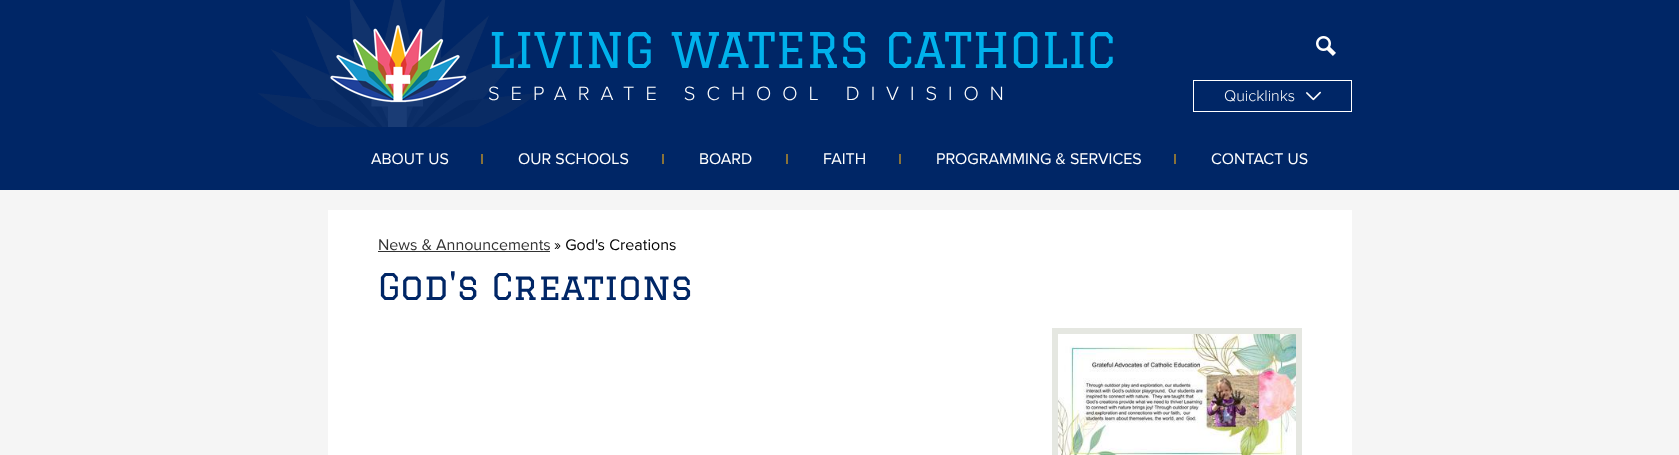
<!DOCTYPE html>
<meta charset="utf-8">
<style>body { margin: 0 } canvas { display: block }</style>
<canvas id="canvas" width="1679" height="455"></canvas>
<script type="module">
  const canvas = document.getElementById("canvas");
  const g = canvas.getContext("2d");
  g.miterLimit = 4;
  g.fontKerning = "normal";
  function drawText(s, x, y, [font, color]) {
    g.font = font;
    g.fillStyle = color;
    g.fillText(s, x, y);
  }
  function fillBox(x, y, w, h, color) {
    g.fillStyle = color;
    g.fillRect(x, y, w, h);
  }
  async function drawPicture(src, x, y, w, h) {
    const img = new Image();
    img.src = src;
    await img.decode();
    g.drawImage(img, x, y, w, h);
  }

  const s1 = ["48px Graduate", "#00B2EC"];
  const s2 = ["300 20px Proxima Nova", "#FFFFFF"];
  const s3 = ["300 16px Proxima Nova", "#FFFFFF"];
  const s4 = ["16px Proxima Nova", "#FFFFFF"];
  const s5 = ["16px Proxima Nova", "#333333"];
  const s6 = ["16px Proxima Nova", "#000000"];
  const s7 = ["36px Graduate", "#002666"];

  fillBox(0, 0, 1679, 455, "#F5F5F5");
  fillBox(0, 0, 1679, 190, "#002666");
  await drawPicture("pic1.png", 258, 0, 279, 127);
  await drawPicture("pic2.png", 330, 25, 137, 78);
  drawText("LIVING WATERS CATHOLIC", 488, 68, s1);
  g.letterSpacing = "11px";
  drawText("SEPARATE SCHOOL DIVISION", 488, 100, s2);
  await drawPicture("pic3.png", 1316, 36, 20, 20);
  g.strokeStyle = "#FFFFFF";
  g.strokeRect(1193.5, 80.5, 158, 31);
  g.letterSpacing = "0px";
  drawText("Quicklinks", 1224, 101, s3);
  await drawPicture("pic4.png", 1306, 91, 15, 10);
  drawText("ABOUT US", 371, 164, s4);
  fillBox(481, 154, 2, 10, "#897239");
  drawText("OUR SCHOOLS", 518, 164, s4);
  fillBox(662, 154, 2, 10, "#897239");
  drawText("BOARD", 699, 164, s4);
  fillBox(786, 154, 2, 10, "#897239");
  drawText("FAITH", 823, 164, s4);
  fillBox(899, 154, 2, 10, "#897239");
  drawText("PROGRAMMING & SERVICES", 936, 164, s4);
  fillBox(1174, 154, 2, 10, "#897239");
  drawText("CONTACT US", 1211, 164, s4);
  fillBox(328, 210, 1024, 245, "#FFFFFF");
  drawText("News & Announcements", 378, 250, s5);
  fillBox(378, 251, 172, 1, "#333333");
  drawText("» God's Creations", 554, 250, s6);
  drawText("God's Creations", 378, 300, s7);
  g.strokeStyle = "#E5E7E1";
  g.lineWidth = 6;
  g.strokeRect(1055, 331, 244, 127);
  await drawPicture("pic5.png", 1058, 334, 238, 121);
</script>
